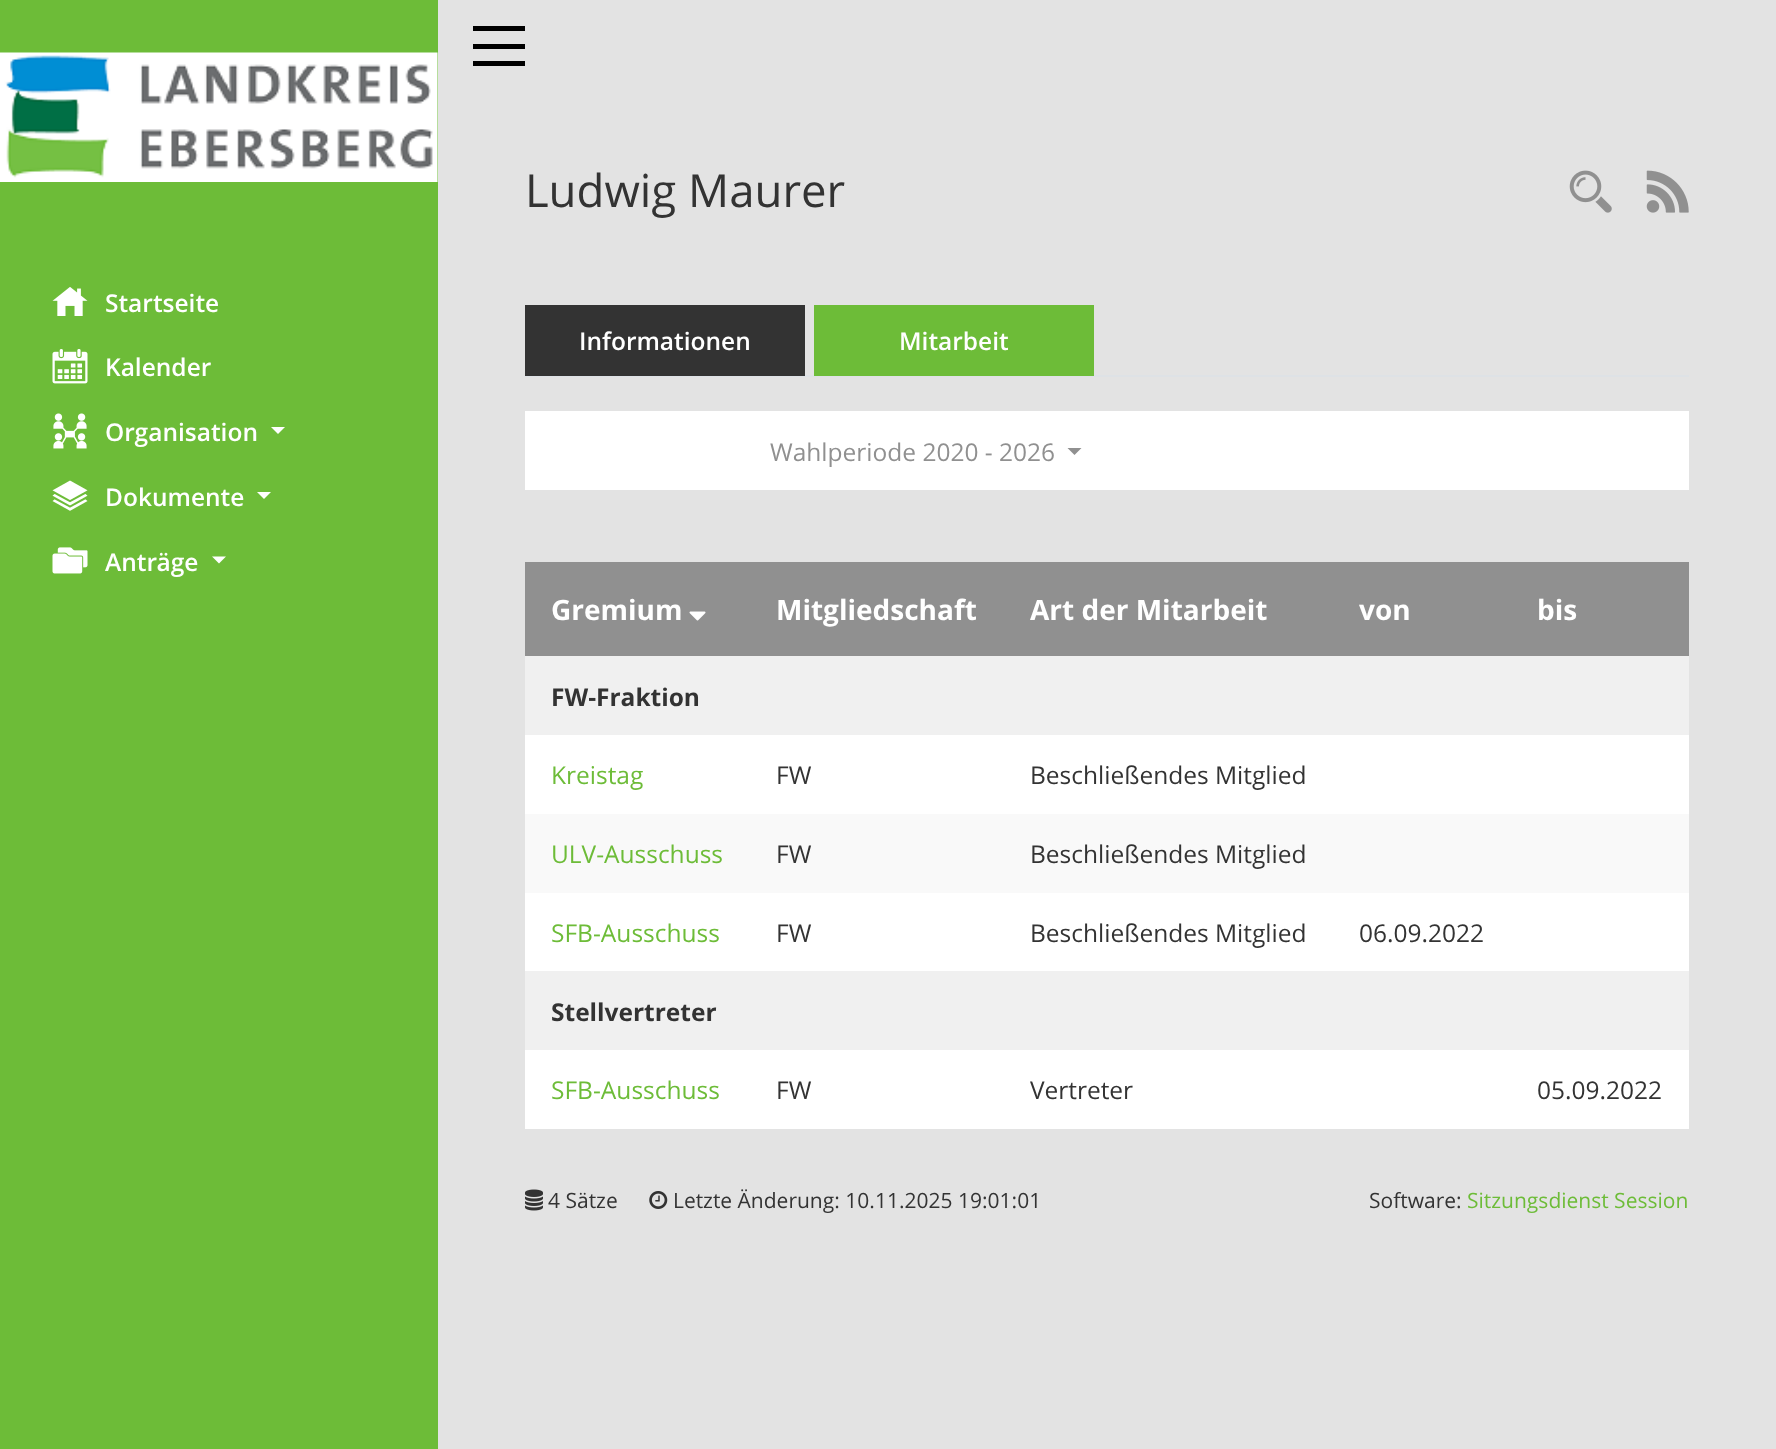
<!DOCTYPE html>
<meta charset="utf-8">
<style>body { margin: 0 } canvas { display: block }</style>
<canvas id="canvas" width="1776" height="1449"></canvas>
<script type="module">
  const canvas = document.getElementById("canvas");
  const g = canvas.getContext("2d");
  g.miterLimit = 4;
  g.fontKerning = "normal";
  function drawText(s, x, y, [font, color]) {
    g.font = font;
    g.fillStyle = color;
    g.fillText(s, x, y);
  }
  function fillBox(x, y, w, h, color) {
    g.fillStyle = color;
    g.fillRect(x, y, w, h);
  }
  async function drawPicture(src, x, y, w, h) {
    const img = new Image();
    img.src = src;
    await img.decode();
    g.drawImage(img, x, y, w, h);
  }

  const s1 = ["600 24.5px Open Sans", "#FFFFFF"];
  const s2 = ["45.5px Open Sans", "#333333"];
  const s3 = ["24.5px Open Sans", "#909090"];
  const s4 = ["bold 28px Open Sans", "#FFFFFF"];
  const s5 = ["bold 24.5px Open Sans", "#333333"];
  const s6 = ["24.5px Open Sans", "#6DBC38"];
  const s7 = ["24.5px Open Sans", "#333333"];
  const s8 = ["21px Open Sans", "#333333"];
  const s9 = ["21px Open Sans", "#6DBC38"];

  fillBox(0, 0, 1776, 1449, "#E3E3E3");
  fillBox(0, 0, 438, 1449, "#6DBC38");
  await drawPicture("pic1.png", 0, 52, 438, 130);
  await drawPicture("pic2.png", 52, 287, 36, 29);
  drawText("Startseite", 105, 312, s1);
  await drawPicture("pic3.png", 52, 349, 36, 35);
  drawText("Kalender", 105, 376, s1);
  await drawPicture("pic4.png", 53, 413, 34, 36);
  drawText("Organisation", 105, 441, s1);
  g.beginPath();
  g.moveTo(271, 427);
  g.lineTo(285, 427);
  g.lineTo(278, 434);
  g.closePath();
  g.fill();
  await drawPicture("pic5.png", 52, 480, 36, 31);
  drawText("Dokumente", 105, 506, s1);
  g.beginPath();
  g.moveTo(257, 492);
  g.lineTo(271, 492);
  g.lineTo(264, 499);
  g.closePath();
  g.fill();
  await drawPicture("pic6.png", 52, 547, 36, 27);
  drawText("Anträge", 105, 571, s1);
  g.beginPath();
  g.moveTo(212, 556.5);
  g.lineTo(226, 556.5);
  g.lineTo(219, 563.5);
  g.closePath();
  g.fill();
  fillBox(473, 26, 52, 5, "#000000");
  fillBox(473, 44, 52, 5, "#000000");
  fillBox(473, 61, 52, 5, "#000000");
  drawText("Ludwig Maurer", 525, 207, s2);
  await drawPicture("pic7.png", 1569, 170, 43, 43);
  await drawPicture("pic8.png", 1646, 170, 43, 43);
  fillBox(525, 375, 1164, 2, "#DEE2E6");
  fillBox(525, 305, 280, 71, "#333333");
  drawText("Informationen", 579, 350, s1);
  fillBox(814, 305, 280, 71, "#6DBC38");
  drawText("Mitarbeit", 899, 350, s1);
  fillBox(525, 411, 1164, 79, "#FFFFFF");
  drawText("Wahlperiode 2020 - 2026", 770, 461, s3);
  g.beginPath();
  g.moveTo(1067.5, 448);
  g.lineTo(1081.5, 448);
  g.lineTo(1074.5, 455);
  g.closePath();
  g.fill();
  fillBox(525, 735, 1164, 394, "#FFFFFF");
  fillBox(525, 562, 1164, 94, "#909090");
  drawText("Gremium", 551, 620, s4);
  await drawPicture("pic9.png", 689, 611, 17, 10);
  drawText("Mitgliedschaft", 776, 620, s4);
  drawText("Art der Mitarbeit", 1030, 620, s4);
  drawText("von", 1359, 620, s4);
  drawText("bis", 1537, 620, s4);
  fillBox(525, 656, 1164, 79, "#F0F0F0");
  drawText("FW-Fraktion", 551, 706, s5);
  drawText("Kreistag", 551, 784, s6);
  drawText("FW", 776, 784, s7);
  drawText("Beschließendes Mitglied", 1030, 784, s7);
  fillBox(525, 814, 1164, 79, "#F9F9F9");
  drawText("ULV-Ausschuss", 551, 863, s6);
  drawText("FW", 776, 863, s7);
  drawText("Beschließendes Mitglied", 1030, 863, s7);
  drawText("SFB-Ausschuss", 551, 942, s6);
  drawText("FW", 776, 942, s7);
  drawText("Beschließendes Mitglied", 1030, 942, s7);
  drawText("06.09.2022", 1359, 942, s7);
  fillBox(525, 971, 1164, 79, "#F0F0F0");
  drawText("Stellvertreter", 551, 1021, s5);
  drawText("SFB-Ausschuss", 551, 1099, s6);
  drawText("FW", 776, 1099, s7);
  drawText("Vertreter", 1030, 1099, s7);
  drawText("05.09.2022", 1537, 1099, s7);
  await drawPicture("pic10.png", 525, 1189, 18, 22);
  drawText("4 Sätze", 548, 1208, s8);
  await drawPicture("pic11.png", 649, 1191, 19, 18);
  drawText("Letzte Änderung: 10.11.2025 19:01:01", 673, 1208, s8);
  drawText("Software:", 1369, 1208, s8);
  drawText("Sitzungsdienst Session", 1467, 1208, s9);
</script>
